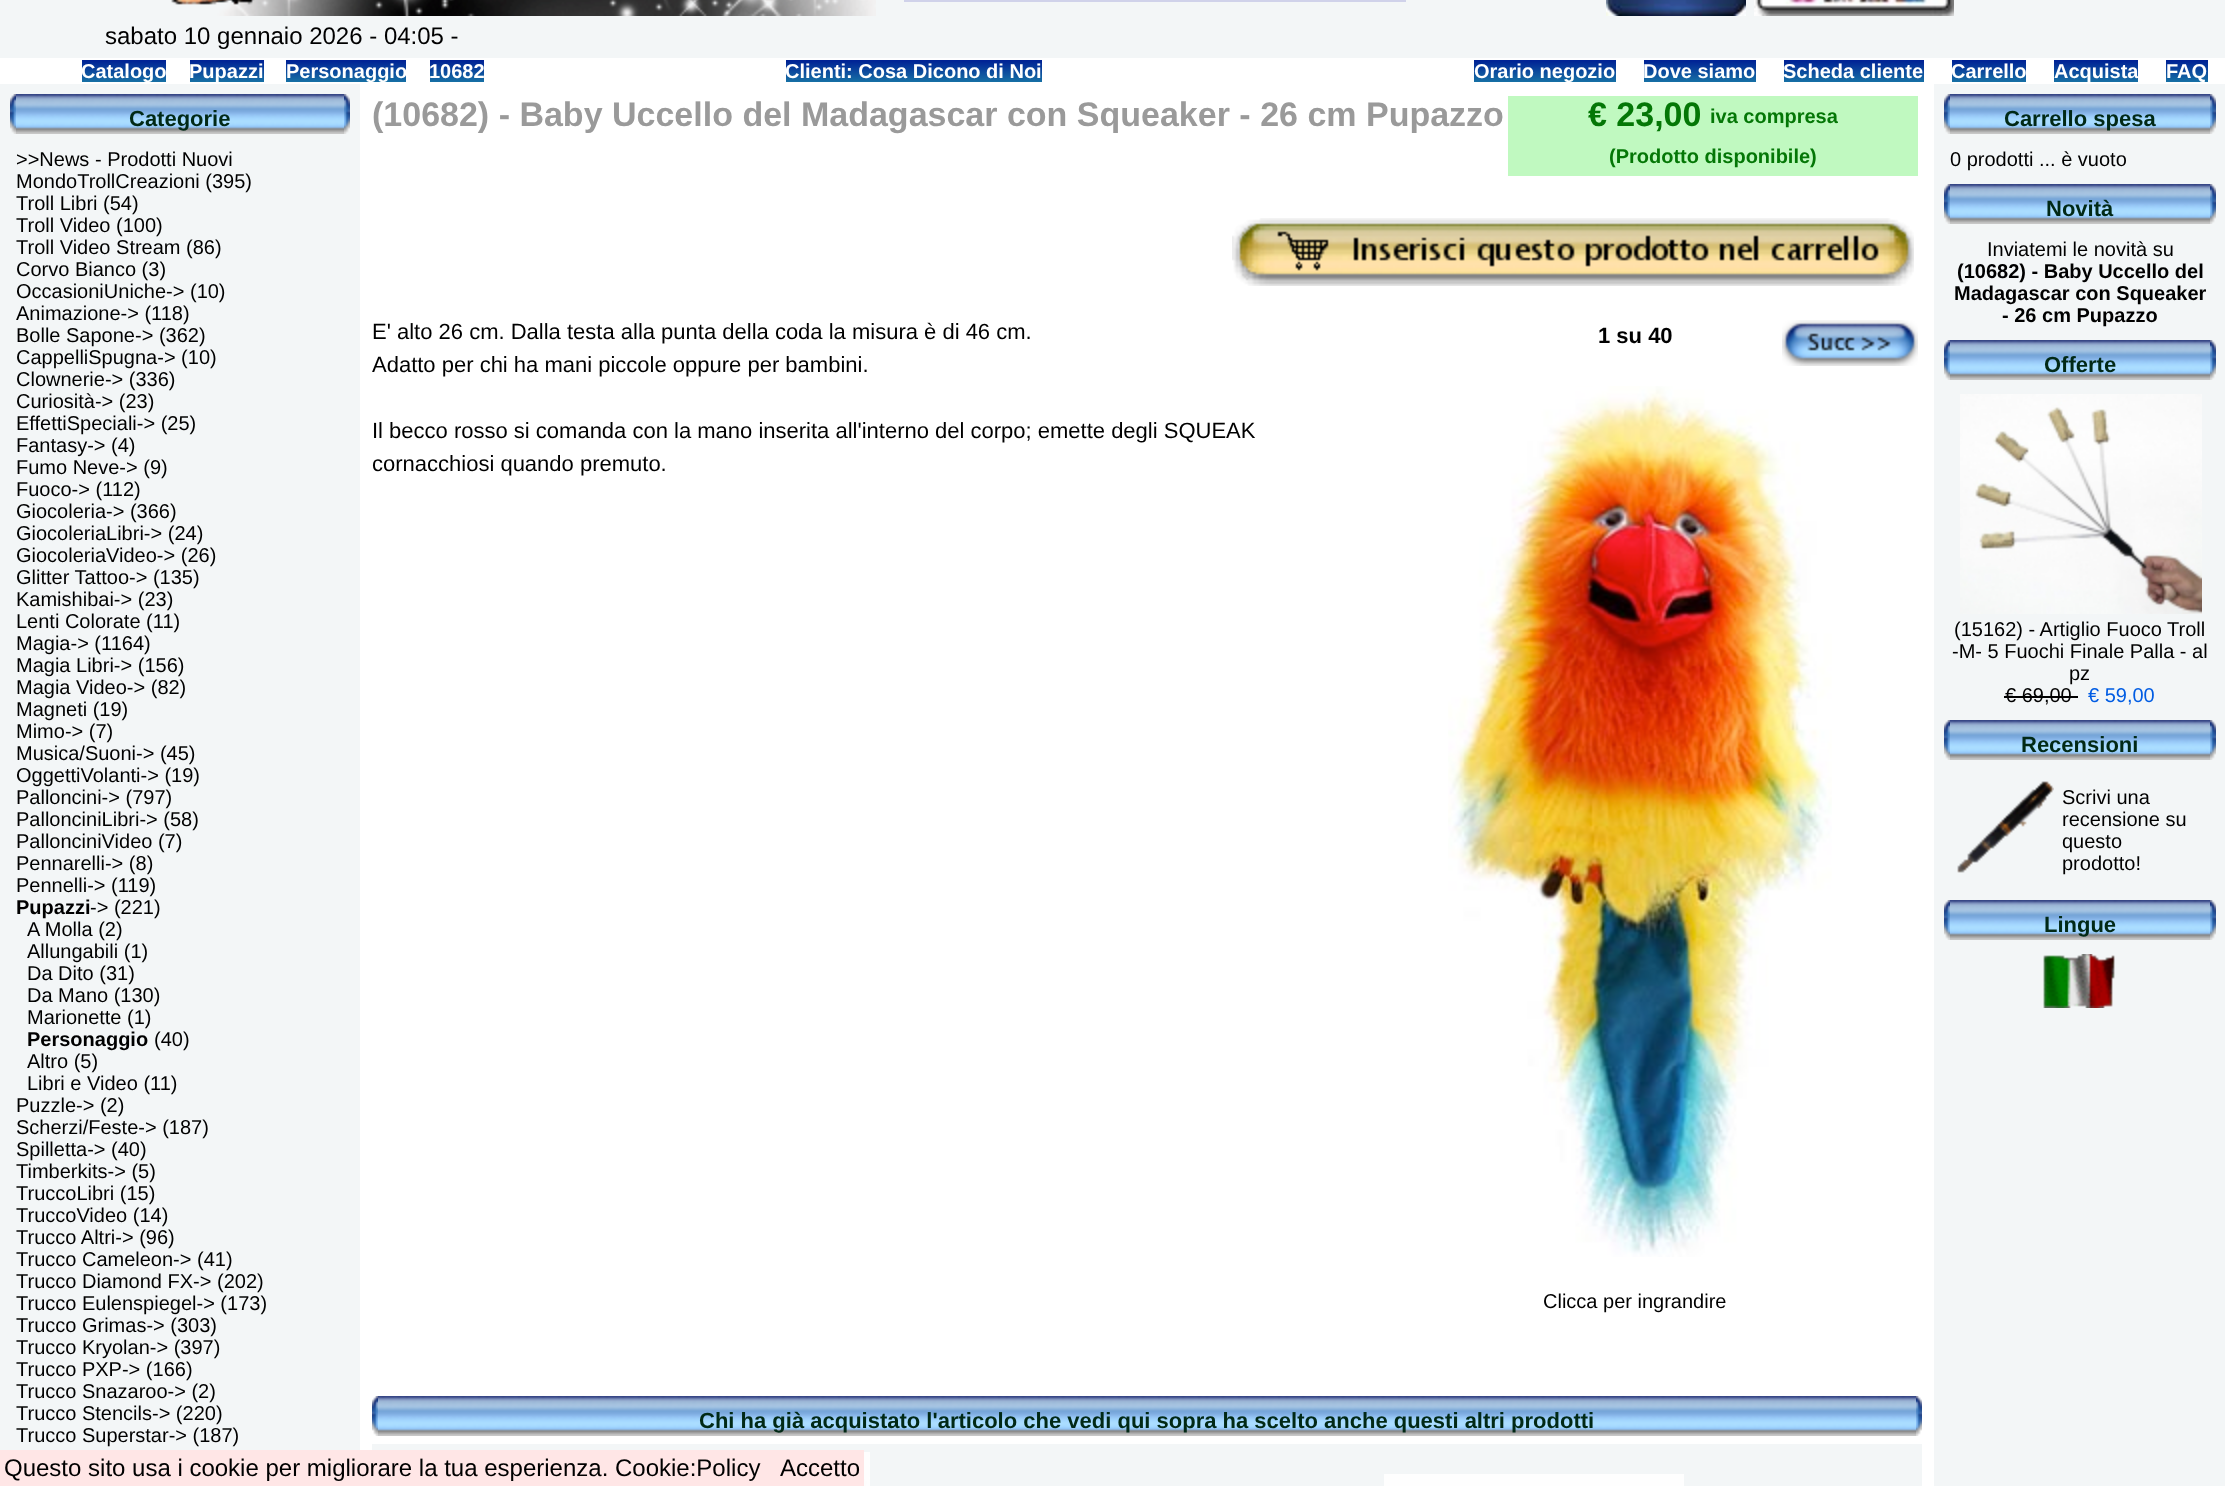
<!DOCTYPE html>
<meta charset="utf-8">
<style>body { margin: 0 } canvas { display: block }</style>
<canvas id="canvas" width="2225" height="1486"></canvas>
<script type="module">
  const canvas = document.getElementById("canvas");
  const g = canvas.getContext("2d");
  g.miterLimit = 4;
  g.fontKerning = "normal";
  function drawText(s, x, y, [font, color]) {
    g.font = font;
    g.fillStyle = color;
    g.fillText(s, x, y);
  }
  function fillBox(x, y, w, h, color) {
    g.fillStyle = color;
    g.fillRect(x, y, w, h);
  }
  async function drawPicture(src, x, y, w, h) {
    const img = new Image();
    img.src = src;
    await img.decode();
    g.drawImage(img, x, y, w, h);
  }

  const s1 = ["24px Liberation Sans", "#000000"];
  const s2 = ["bold 20px Liberation Sans", "#FFFFFF"];
  const s3 = ["bold 22px Liberation Sans", "#012916"];
  const s4 = ["20px Liberation Sans", "#000000"];
  const s5 = ["bold 20px Liberation Sans", "#000000"];
  const s6 = ["bold 34px Liberation Sans", "#9A9A9A"];
  const s7 = ["bold 34px Liberation Sans", "#047706"];
  const s8 = ["bold 20px Liberation Sans", "#047706"];
  const s9 = ["22px Liberation Sans", "#000000"];
  const s10 = ["bold 22px Liberation Sans", "#000000"];
  const s11 = ["20px Liberation Sans", "#005CE3"];

  fillBox(0, 0, 2225, 1486, "#FFFFFF");
  fillBox(0, 0, 2225, 58, "#F3F6F7");
  fillBox(904, 0, 502, 2, "#D0D2EA");
  await drawPicture("pic1.png", 1606, 0, 140, 16);
  await drawPicture("pic2.png", 1754, 0, 200, 16);
  await drawPicture("pic3.png", 171, 0, 705, 16);
  drawText("sabato 10 gennaio 2026 - 04:05 -", 105, 44, s1);
  await drawPicture("pic4.png", 82, 60, 84, 22);
  await drawPicture("pic5.png", 190, 60, 74, 22);
  await drawPicture("pic6.png", 286, 60, 120, 22);
  await drawPicture("pic7.png", 430, 60, 54, 22);
  drawText("Catalogo", 81, 78, s2);
  drawText("Pupazzi", 189, 78, s2);
  drawText("Personaggio", 286, 78, s2);
  drawText("10682", 429, 78, s2);
  await drawPicture("pic8.png", 786, 60, 256, 22);
  drawText("Clienti: Cosa Dicono di Noi", 785, 78, s2);
  await drawPicture("pic9.png", 1474, 60, 142, 22);
  await drawPicture("pic10.png", 1644, 60, 112, 22);
  await drawPicture("pic11.png", 1784, 60, 140, 22);
  await drawPicture("pic5.png", 1952, 60, 74, 22);
  await drawPicture("pic4.png", 2054, 60, 84, 22);
  await drawPicture("pic12.png", 2166, 60, 42, 22);
  drawText("Orario negozio", 1474, 78, s2);
  drawText("Dove siamo", 1643, 78, s2);
  drawText("Scheda cliente", 1783, 78, s2);
  drawText("Carrello", 1951, 78, s2);
  drawText("Acquista", 2054, 78, s2);
  drawText("FAQ", 2166, 78, s2);
  fillBox(0, 84, 360, 1366, "#F3F6F7");
  await drawPicture("pic13.png", 10, 94, 6, 40);
  await drawPicture("pic14.png", 16, 94, 328, 40);
  drawText("Categorie", 129, 126, s3);
  await drawPicture("pic15.png", 344, 94, 6, 40);
  drawText(">>News - Prodotti Nuovi", 16, 166, s4);
  drawText("MondoTrollCreazioni (395)", 16, 188, s4);
  drawText("Troll Libri (54)", 16, 210, s4);
  drawText("Troll Video (100)", 16, 232, s4);
  drawText("Troll Video Stream (86)", 16, 254, s4);
  drawText("Corvo Bianco (3)", 16, 276, s4);
  drawText("OccasioniUniche-> (10)", 16, 298, s4);
  drawText("Animazione-> (118)", 16, 320, s4);
  drawText("Bolle Sapone-> (362)", 16, 342, s4);
  drawText("CappelliSpugna-> (10)", 16, 364, s4);
  drawText("Clownerie-> (336)", 16, 386, s4);
  drawText("Curiosità-> (23)", 16, 408, s4);
  drawText("EffettiSpeciali-> (25)", 16, 430, s4);
  drawText("Fantasy-> (4)", 16, 452, s4);
  drawText("Fumo Neve-> (9)", 16, 474, s4);
  drawText("Fuoco-> (112)", 16, 496, s4);
  drawText("Giocoleria-> (366)", 16, 518, s4);
  drawText("GiocoleriaLibri-> (24)", 16, 540, s4);
  drawText("GiocoleriaVideo-> (26)", 16, 562, s4);
  drawText("Glitter Tattoo-> (135)", 16, 584, s4);
  drawText("Kamishibai-> (23)", 16, 606, s4);
  drawText("Lenti Colorate (11)", 16, 628, s4);
  drawText("Magia-> (1164)", 16, 650, s4);
  drawText("Magia Libri-> (156)", 16, 672, s4);
  drawText("Magia Video-> (82)", 16, 694, s4);
  drawText("Magneti (19)", 16, 716, s4);
  drawText("Mimo-> (7)", 16, 738, s4);
  drawText("Musica/Suoni-> (45)", 16, 760, s4);
  drawText("OggettiVolanti-> (19)", 16, 782, s4);
  drawText("Palloncini-> (797)", 16, 804, s4);
  drawText("PallonciniLibri-> (58)", 16, 826, s4);
  drawText("PallonciniVideo (7)", 16, 848, s4);
  drawText("Pennarelli-> (8)", 16, 870, s4);
  drawText("Pennelli-> (119)", 16, 892, s4);
  drawText("Pupazzi", 16, 914, s5);
  drawText("-> (221)", 90, 914, s4);
  drawText("A Molla (2)", 27, 936, s4);
  drawText("Allungabili (1)", 27, 958, s4);
  drawText("Da Dito (31)", 27, 980, s4);
  drawText("Da Mano (130)", 27, 1002, s4);
  drawText("Marionette (1)", 27, 1024, s4);
  drawText("Personaggio", 27, 1046, s5);
  drawText("(40)", 154, 1046, s4);
  drawText("Altro (5)", 27, 1068, s4);
  drawText("Libri e Video (11)", 27, 1090, s4);
  drawText("Puzzle-> (2)", 16, 1112, s4);
  drawText("Scherzi/Feste-> (187)", 16, 1134, s4);
  drawText("Spilletta-> (40)", 16, 1156, s4);
  drawText("Timberkits-> (5)", 16, 1178, s4);
  drawText("TruccoLibri (15)", 16, 1200, s4);
  drawText("TruccoVideo (14)", 16, 1222, s4);
  drawText("Trucco Altri-> (96)", 16, 1244, s4);
  drawText("Trucco Cameleon-> (41)", 16, 1266, s4);
  drawText("Trucco Diamond FX-> (202)", 16, 1288, s4);
  drawText("Trucco Eulenspiegel-> (173)", 16, 1310, s4);
  drawText("Trucco Grimas-> (303)", 16, 1332, s4);
  drawText("Trucco Kryolan-> (397)", 16, 1354, s4);
  drawText("Trucco PXP-> (166)", 16, 1376, s4);
  drawText("Trucco Snazaroo-> (2)", 16, 1398, s4);
  drawText("Trucco Stencils-> (220)", 16, 1420, s4);
  drawText("Trucco Superstar-> (187)", 16, 1442, s4);
  drawText("(10682) - Baby Uccello del Madagascar con Squeaker - 26 cm Pupazzo", 372, 126, s6);
  fillBox(1508, 96, 410, 80, "#C0F9C0");
  drawText("€ 23,00", 1588, 126, s7);
  drawText("iva compresa", 1710, 123, s8);
  drawText("(Prodotto disponibile)", 1609, 163, s8);
  await drawPicture("pic16.png", 1232, 218, 682, 68);
  drawText("E' alto 26 cm. Dalla testa alla punta della coda la misura è di 46 cm.", 372, 339, s9);
  drawText("1 su 40", 1598, 343, s10);
  await drawPicture("pic17.png", 1782, 320, 136, 46);
  await drawPicture("pic18.png", 1448, 386, 384, 871);
  drawText("Clicca per ingrandire", 1543, 1308, s4);
  drawText("Adatto per chi ha mani piccole oppure per bambini.", 372, 372, s9);
  drawText("Il becco rosso si comanda con la mano inserita all'interno del corpo; emette degli SQUEAK", 372, 438, s9);
  drawText("cornacchiosi quando premuto.", 372, 471, s9);
  await drawPicture("pic19.png", 372, 1396, 6, 40);
  await drawPicture("pic20.png", 378, 1396, 1538, 40);
  drawText("Chi ha già acquistato l'articolo che vedi qui sopra ha scelto anche questi altri prodotti", 699, 1428, s3);
  await drawPicture("pic21.png", 1916, 1396, 6, 40);
  fillBox(372, 1444, 1550, 42, "#F3F6F7");
  await drawPicture("pic22.png", 864, 1452, 6, 34);
  fillBox(1384, 1474, 300, 12, "#FEFEFE");
  fillBox(1934, 84, 291, 1402, "#F3F6F7");
  await drawPicture("pic13.png", 1944, 94, 6, 40);
  await drawPicture("pic23.png", 1950, 94, 260, 40);
  drawText("Carrello spesa", 2004, 126, s3);
  await drawPicture("pic15.png", 2210, 94, 6, 40);
  drawText("0 prodotti ... è vuoto", 1950, 166, s4);
  await drawPicture("pic13.png", 1944, 184, 6, 40);
  await drawPicture("pic23.png", 1950, 184, 260, 40);
  drawText("Novità", 2046, 216, s3);
  await drawPicture("pic15.png", 2210, 184, 6, 40);
  drawText("Inviatemi le novità su", 1987, 256, s4);
  drawText("(10682) - Baby Uccello del", 1957, 278, s5);
  drawText("Madagascar con Squeaker", 1954, 300, s5);
  drawText("- 26 cm Pupazzo", 2002, 322, s5);
  await drawPicture("pic13.png", 1944, 340, 6, 40);
  await drawPicture("pic23.png", 1950, 340, 260, 40);
  drawText("Offerte", 2044, 372, s3);
  await drawPicture("pic15.png", 2210, 340, 6, 40);
  await drawPicture("pic24.png", 1960, 394, 242, 220);
  drawText("(15162) - Artiglio Fuoco Troll", 1954, 636, s4);
  drawText("-M- 5 Fuochi Finale Palla - al", 1952, 658, s4);
  drawText("pz", 2069, 680, s4);
  drawText("€ 69,00", 2005, 702, s4);
  fillBox(2004, 696, 74, 2, "#000000");
  drawText("€ 59,00", 2088, 702, s11);
  await drawPicture("pic13.png", 1944, 720, 6, 40);
  await drawPicture("pic23.png", 1950, 720, 260, 40);
  drawText("Recensioni", 2021, 752, s3);
  await drawPicture("pic15.png", 2210, 720, 6, 40);
  await drawPicture("pic25.png", 1957, 781, 97, 92);
  drawText("Scrivi una", 2062, 804, s4);
  drawText("recensione su", 2062, 826, s4);
  drawText("questo", 2062, 848, s4);
  drawText("prodotto!", 2062, 870, s4);
  await drawPicture("pic13.png", 1944, 900, 6, 40);
  await drawPicture("pic23.png", 1950, 900, 260, 40);
  drawText("Lingue", 2044, 932, s3);
  await drawPicture("pic15.png", 2210, 900, 6, 40);
  await drawPicture("pic26.png", 2043, 954, 72, 54);
  fillBox(0, 1450, 864, 36, "#FFE6E6");
  drawText("Questo sito usa i cookie per migliorare la tua esperienza. Cookie:Policy", 4, 1476, s1);
  drawText("Accetto", 780, 1476, s1);
</script>
